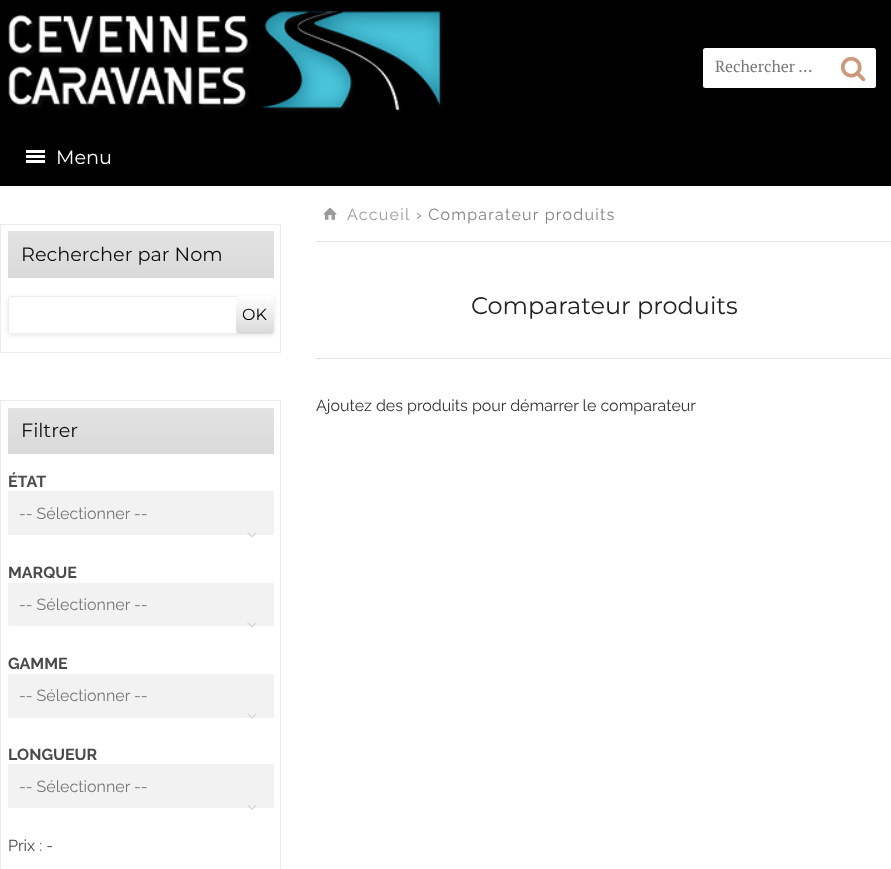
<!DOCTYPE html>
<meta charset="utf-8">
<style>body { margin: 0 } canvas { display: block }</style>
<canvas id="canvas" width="891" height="869"></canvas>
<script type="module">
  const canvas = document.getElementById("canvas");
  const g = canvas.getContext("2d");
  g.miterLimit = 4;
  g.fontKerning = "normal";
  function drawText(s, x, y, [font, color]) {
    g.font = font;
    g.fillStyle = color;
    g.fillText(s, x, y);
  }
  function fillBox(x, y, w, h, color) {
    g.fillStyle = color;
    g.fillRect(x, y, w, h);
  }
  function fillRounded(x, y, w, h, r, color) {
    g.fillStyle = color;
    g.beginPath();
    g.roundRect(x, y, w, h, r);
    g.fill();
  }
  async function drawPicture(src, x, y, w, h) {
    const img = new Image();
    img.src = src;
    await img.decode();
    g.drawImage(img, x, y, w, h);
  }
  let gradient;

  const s1 = ["16px PT Serif", "#777777"];
  const s2 = ["100 19.25px Montserrat", "#FFFFFF"];
  const s3 = ["100 19.25px Montserrat", "#0D0D0D"];
  const s4 = ["100 16px Montserrat", "#000000"];
  const s5 = ["bold 16px Raleway", "#4A4A4A"];
  const s6 = ["16px Raleway", "#777777"];
  const s7 = ["16px Raleway", "#4A4A4A"];
  const s8 = ["16px Raleway", "#9B9B9B"];
  const s9 = ["16px Raleway", "#818181"];
  const s10 = ["100 24px Montserrat", "#222222"];
  const s11 = ["16px Raleway", "#333333"];

  fillBox(0, 0, 891, 869, "#FFFFFF");
  fillBox(0, 0, 891, 186, "#000000");
  await drawPicture("pic1.png", 8, 11, 435, 102);
  fillRounded(703, 48, 173, 40, 2.5, "#FFFFFF");
  drawText("Rechercher ...", 715, 72, s1);
  await drawPicture("pic2.png", 840, 56, 26, 26);
  fillBox(26, 155, 19, 3, "#FFFFFF");
  fillBox(26, 150, 19, 3, "#FFFFFF");
  fillBox(26, 160, 19, 3, "#FFFFFF");
  drawText("Menu", 56, 164, s2);
  g.strokeStyle = "#EBEBEB";
  g.strokeRect(0.5, 224.5, 280, 128);
  gradient = g.createLinearGradient(141, 231, 141, 278);
  gradient.addColorStop(0, "#E3E3E3");
  gradient.addColorStop(1, "#D9D9D9");
  g.fillStyle = gradient;
  g.fillRect(8, 231, 266, 47);
  drawText("Rechercher par Nom", 21, 261, s3);
  g.fillStyle = "rgba(0, 0, 0, 0.1)";
  g.filter = "blur(2.5px)";
  g.beginPath();
  g.roundRect(8, 298, 266, 37, 2.5);
  g.fill();
  g.filter = "none";
  g.fillStyle = "#FFFFFF";
  g.beginPath();
  g.roundRect(8.5, 296.5, 265, 37, 2);
  g.fill();
  g.strokeStyle = "#EEEEEE";
  g.stroke();
  gradient = g.createLinearGradient(255, 296, 255, 334);
  gradient.addColorStop(0, "#FFFFFF");
  gradient.addColorStop(1, "#D9D9D9");
  g.fillStyle = gradient;
  g.beginPath();
  g.roundRect(236, 296, 38, 38, 4);
  g.fill();
  drawText("OK", 242, 320, s4);
  g.strokeStyle = "#EBEBEB";
  g.strokeRect(0.5, 400.5, 280, 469);
  gradient = g.createLinearGradient(141, 408, 141, 454);
  gradient.addColorStop(0, "#E3E3E3");
  gradient.addColorStop(1, "#D9D9D9");
  g.fillStyle = gradient;
  g.fillRect(8, 408, 266, 46);
  drawText("Filtrer", 21, 437, s3);
  drawText("ÉTAT", 8, 487, s5);
  fillBox(8, 491, 266, 44, "#F2F4F6");
  fillRounded(8, 491, 266, 44, 2.5, "#F2F2F2");
  drawText("-- Sélectionner --", 19, 519, s6);
  await drawPicture("pic3.png", 247, 532, 9, 6);
  drawText("MARQUE", 8, 578, s5);
  fillBox(8, 583, 266, 43, "#F2F4F6");
  fillRounded(8, 583, 266, 43, 2.5, "#F2F2F2");
  drawText("-- Sélectionner --", 19, 610, s6);
  await drawPicture("pic4.png", 247, 622, 9, 6);
  drawText("GAMME", 8, 669, s5);
  fillBox(8, 674, 266, 44, "#F2F4F6");
  fillRounded(8, 674, 266, 44, 2.5, "#F2F2F2");
  drawText("-- Sélectionner --", 19, 701, s6);
  await drawPicture("pic5.png", 247, 713, 9, 6);
  drawText("LONGUEUR", 8, 760, s5);
  fillBox(8, 764, 266, 44, "#F2F4F6");
  fillRounded(8, 764, 266, 44, 2.5, "#F2F2F2");
  drawText("-- Sélectionner --", 19, 792, s6);
  await drawPicture("pic6.png", 247, 805, 9, 5);
  drawText("Prix : -", 8, 851, s7);
  fillBox(316, 241, 575, 1, "#E4E4E4");
  await drawPicture("pic7.png", 323, 207, 14, 13);
  g.letterSpacing = "1.25px";
  drawText("Accueil", 347, 220, s8);
  drawText("› Comparateur produits", 416, 220, s9);
  fillBox(316, 358, 575, 1, "#E2E2E2");
  g.letterSpacing = "0px";
  drawText("Comparateur produits", 471, 314, s10);
  drawText("Ajoutez des produits pour démarrer le comparateur", 316, 411, s11);
</script>
